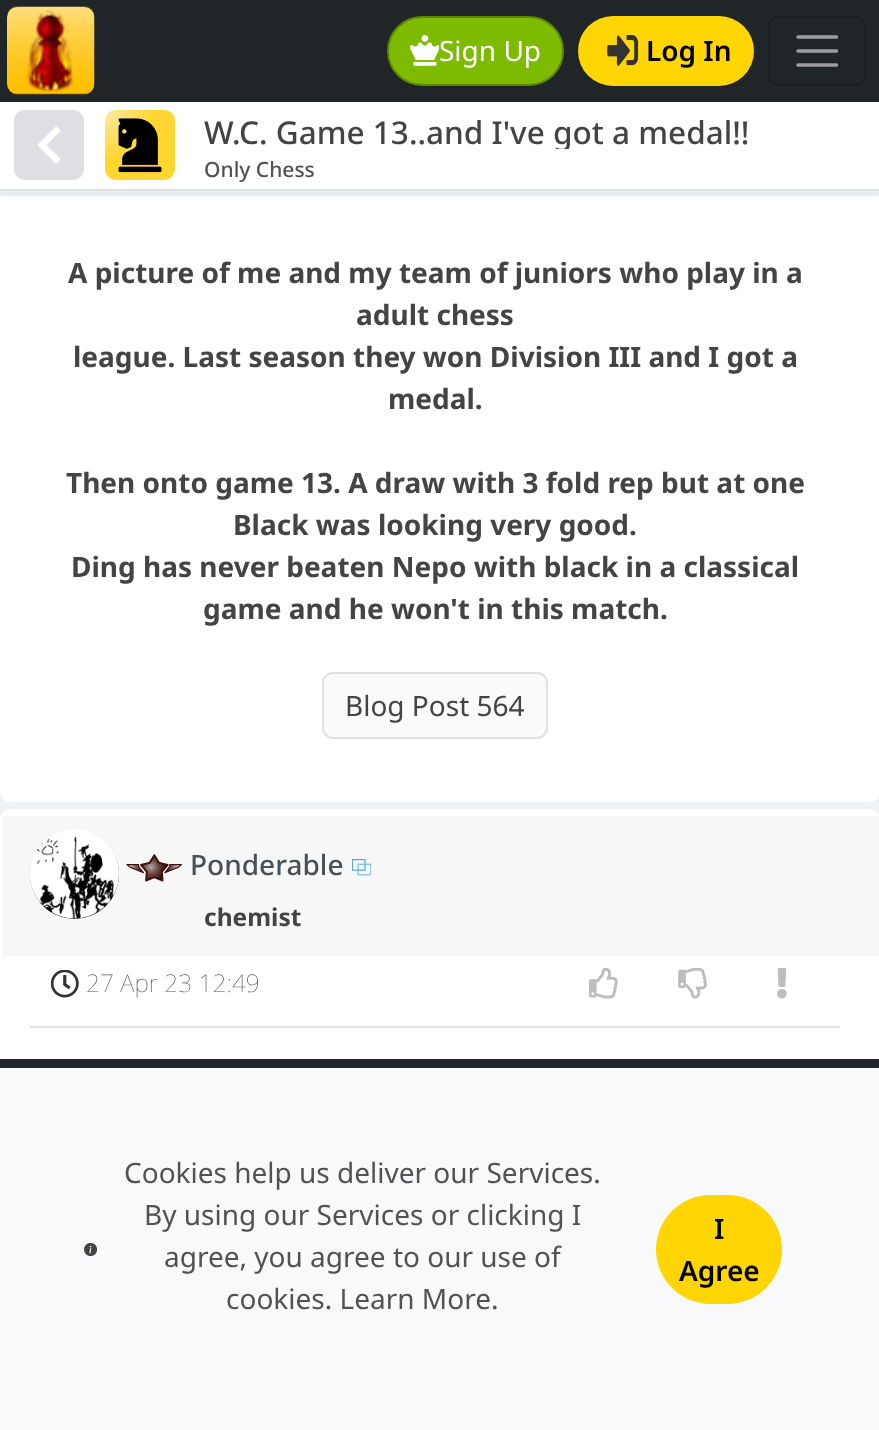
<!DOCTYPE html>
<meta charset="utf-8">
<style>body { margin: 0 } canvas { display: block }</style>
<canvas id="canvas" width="879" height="1430"></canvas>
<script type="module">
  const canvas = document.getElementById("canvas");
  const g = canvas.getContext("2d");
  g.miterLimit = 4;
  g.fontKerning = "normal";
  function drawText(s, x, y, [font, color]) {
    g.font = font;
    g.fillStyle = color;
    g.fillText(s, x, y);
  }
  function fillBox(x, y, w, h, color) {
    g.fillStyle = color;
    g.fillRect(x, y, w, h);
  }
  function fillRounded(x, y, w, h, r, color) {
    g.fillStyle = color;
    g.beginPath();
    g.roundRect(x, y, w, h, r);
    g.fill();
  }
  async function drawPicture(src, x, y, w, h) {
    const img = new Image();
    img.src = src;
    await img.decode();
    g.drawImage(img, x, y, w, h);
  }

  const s1 = ["28px Noto Sans", "#FFFFFF"];
  const s2 = ["600 28px Noto Sans", "#000000"];
  const s3 = ["500 31.5px Noto Sans", "#444444"];
  const s4 = ["500 21px Noto Sans", "#525252"];
  const s5 = ["bold 28px Noto Sans", "#444444"];
  const s6 = ["28px Noto Sans", "#444444"];
  const s7 = ["500 28px Noto Sans", "#495057"];
  const s8 = ["bold 24.5px Noto Sans", "#444444"];
  const s9 = ["100 24.5px Noto Sans", "#525252"];
  const s10 = ["28px Noto Sans", "#525252"];

  fillBox(0, 0, 879, 1430, "#EFF2F4");
  fillRounded(0, -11, 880, 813, 11, "#FFFFFF");
  fillBox(0, 0, 879, 102, "#202528");
  g.fillStyle = "rgba(0, 0, 0, 0.07)";
  g.filter = "blur(3.5px)";
  g.beginPath();
  g.rect(0, 105, 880, 89);
  g.fill();
  g.filter = "none";
  await drawPicture("pic1.png", 7, 6, 88, 89);
  g.fillStyle = "#7EBA00";
  g.beginPath();
  g.roundRect(388, 17, 175, 68, 34);
  g.fill();
  g.strokeStyle = "#5B8700";
  g.lineWidth = 2;
  g.stroke();
  await drawPicture("pic2.png", 410, 35, 29, 31);
  drawText("Sign Up", 439, 61, s1);
  fillRounded(578, 16, 176, 70, 35, "#FFD603");
  await drawPicture("pic3.png", 607, 35, 32, 31);
  drawText("Log In", 646, 61, s2);
  g.beginPath();
  g.roundRect(769, 17, 96, 68, 10);
  g.strokeStyle = "#1B1F22";
  g.stroke();
  g.beginPath();
  g.moveTo(798, 37);
  g.lineTo(836.5, 37);
  g.moveTo(798, 51);
  g.lineTo(836.5, 51);
  g.moveTo(798, 65);
  g.lineTo(836.5, 65);
  g.strokeStyle = "#9B9D9E";
  g.lineWidth = 3.5;
  g.lineCap = "round";
  g.stroke();
  fillBox(0, 102, 879, 87, "#FFFFFF");
  fillBox(0, 189, 879, 2, "#DEE2E6");
  fillRounded(14, 110, 70, 70, 11, "#DFDFE3");
  await drawPicture("pic4.png", 37, 126, 24, 38);
  await drawPicture("pic5.png", 105, 110, 70, 70);
  g.save();
  g.beginPath();
  g.rect(203, 107, 663, 42);
  g.clip();
  drawText("W.C. Game 13..and I've got a medal!!", 204, 144, s3);
  g.restore();
  drawText("Only Chess", 204, 177, s4);
  fillRounded(0, 191, 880, 5, 2.5, "#E9ECEF");
  drawText("A picture of me and my team of juniors who play in a", 68, 283, s5);
  drawText("adult chess", 356, 325, s5);
  drawText("league. Last season they won Division III and I got a", 73, 367, s5);
  drawText("medal.", 388, 409, s5);
  drawText("Then onto game 13. A draw with 3 fold rep but at one", 66, 493, s5);
  drawText("Black was looking very good.", 233, 535, s5);
  drawText("Ding has never beaten Nepo with black in a classical", 71, 577, s5);
  drawText("game and he won't in this match.", 203, 619, s5);
  g.fillStyle = "#FAFAFA";
  g.beginPath();
  g.roundRect(323, 673, 224, 65, 10);
  g.fill();
  g.strokeStyle = "#E1E1E1";
  g.lineWidth = 2;
  g.stroke();
  drawText("Blog Post 564", 345, 716, s6);
  fillRounded(0, 809, 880, 421, 11, "#FFFFFF");
  fillBox(2, 816, 877, 140, "#F7F7F7");
  g.fillStyle = "#333333";
  g.beginPath();
  g.arc(74.5, 874.5, 44.5, 0, Math.PI * 2);
  g.fill();
  await drawPicture("pic6.png", 30, 829, 89, 90);
  await drawPicture("pic7.png", 126, 854, 56, 28);
  drawText("Ponderable", 190, 875, s7);
  await drawPicture("pic8.png", 352, 859, 19, 17);
  drawText("chemist", 204, 926, s8);
  await drawPicture("pic9.png", 51, 970, 28, 28);
  drawText("27 Apr 23 12:49", 86, 992, s9);
  await drawPicture("pic10.png", 589, 968, 29, 31);
  await drawPicture("pic11.png", 678, 968, 29, 31);
  await drawPicture("pic12.png", 777, 968, 10, 31);
  fillBox(30, 1026, 810, 2, "#E4E4E4");
  fillBox(0, 1068, 879, 362, "#F8F9FA");
  fillBox(0, 1059, 879, 9, "#212529");
  await drawPicture("pic13.png", 84, 1242, 13, 15);
  drawText("Cookies help us deliver our Services.", 124, 1183, s10);
  drawText("By using our Services or clicking I", 144, 1225, s10);
  drawText("agree, you agree to our use of", 164, 1267, s10);
  drawText("cookies. Learn More.", 226, 1309, s10);
  fillRounded(656, 1195, 126, 109, 54.5, "#FFD603");
  drawText("I", 714, 1239, s2);
  drawText("Agree", 679, 1281, s2);
</script>
